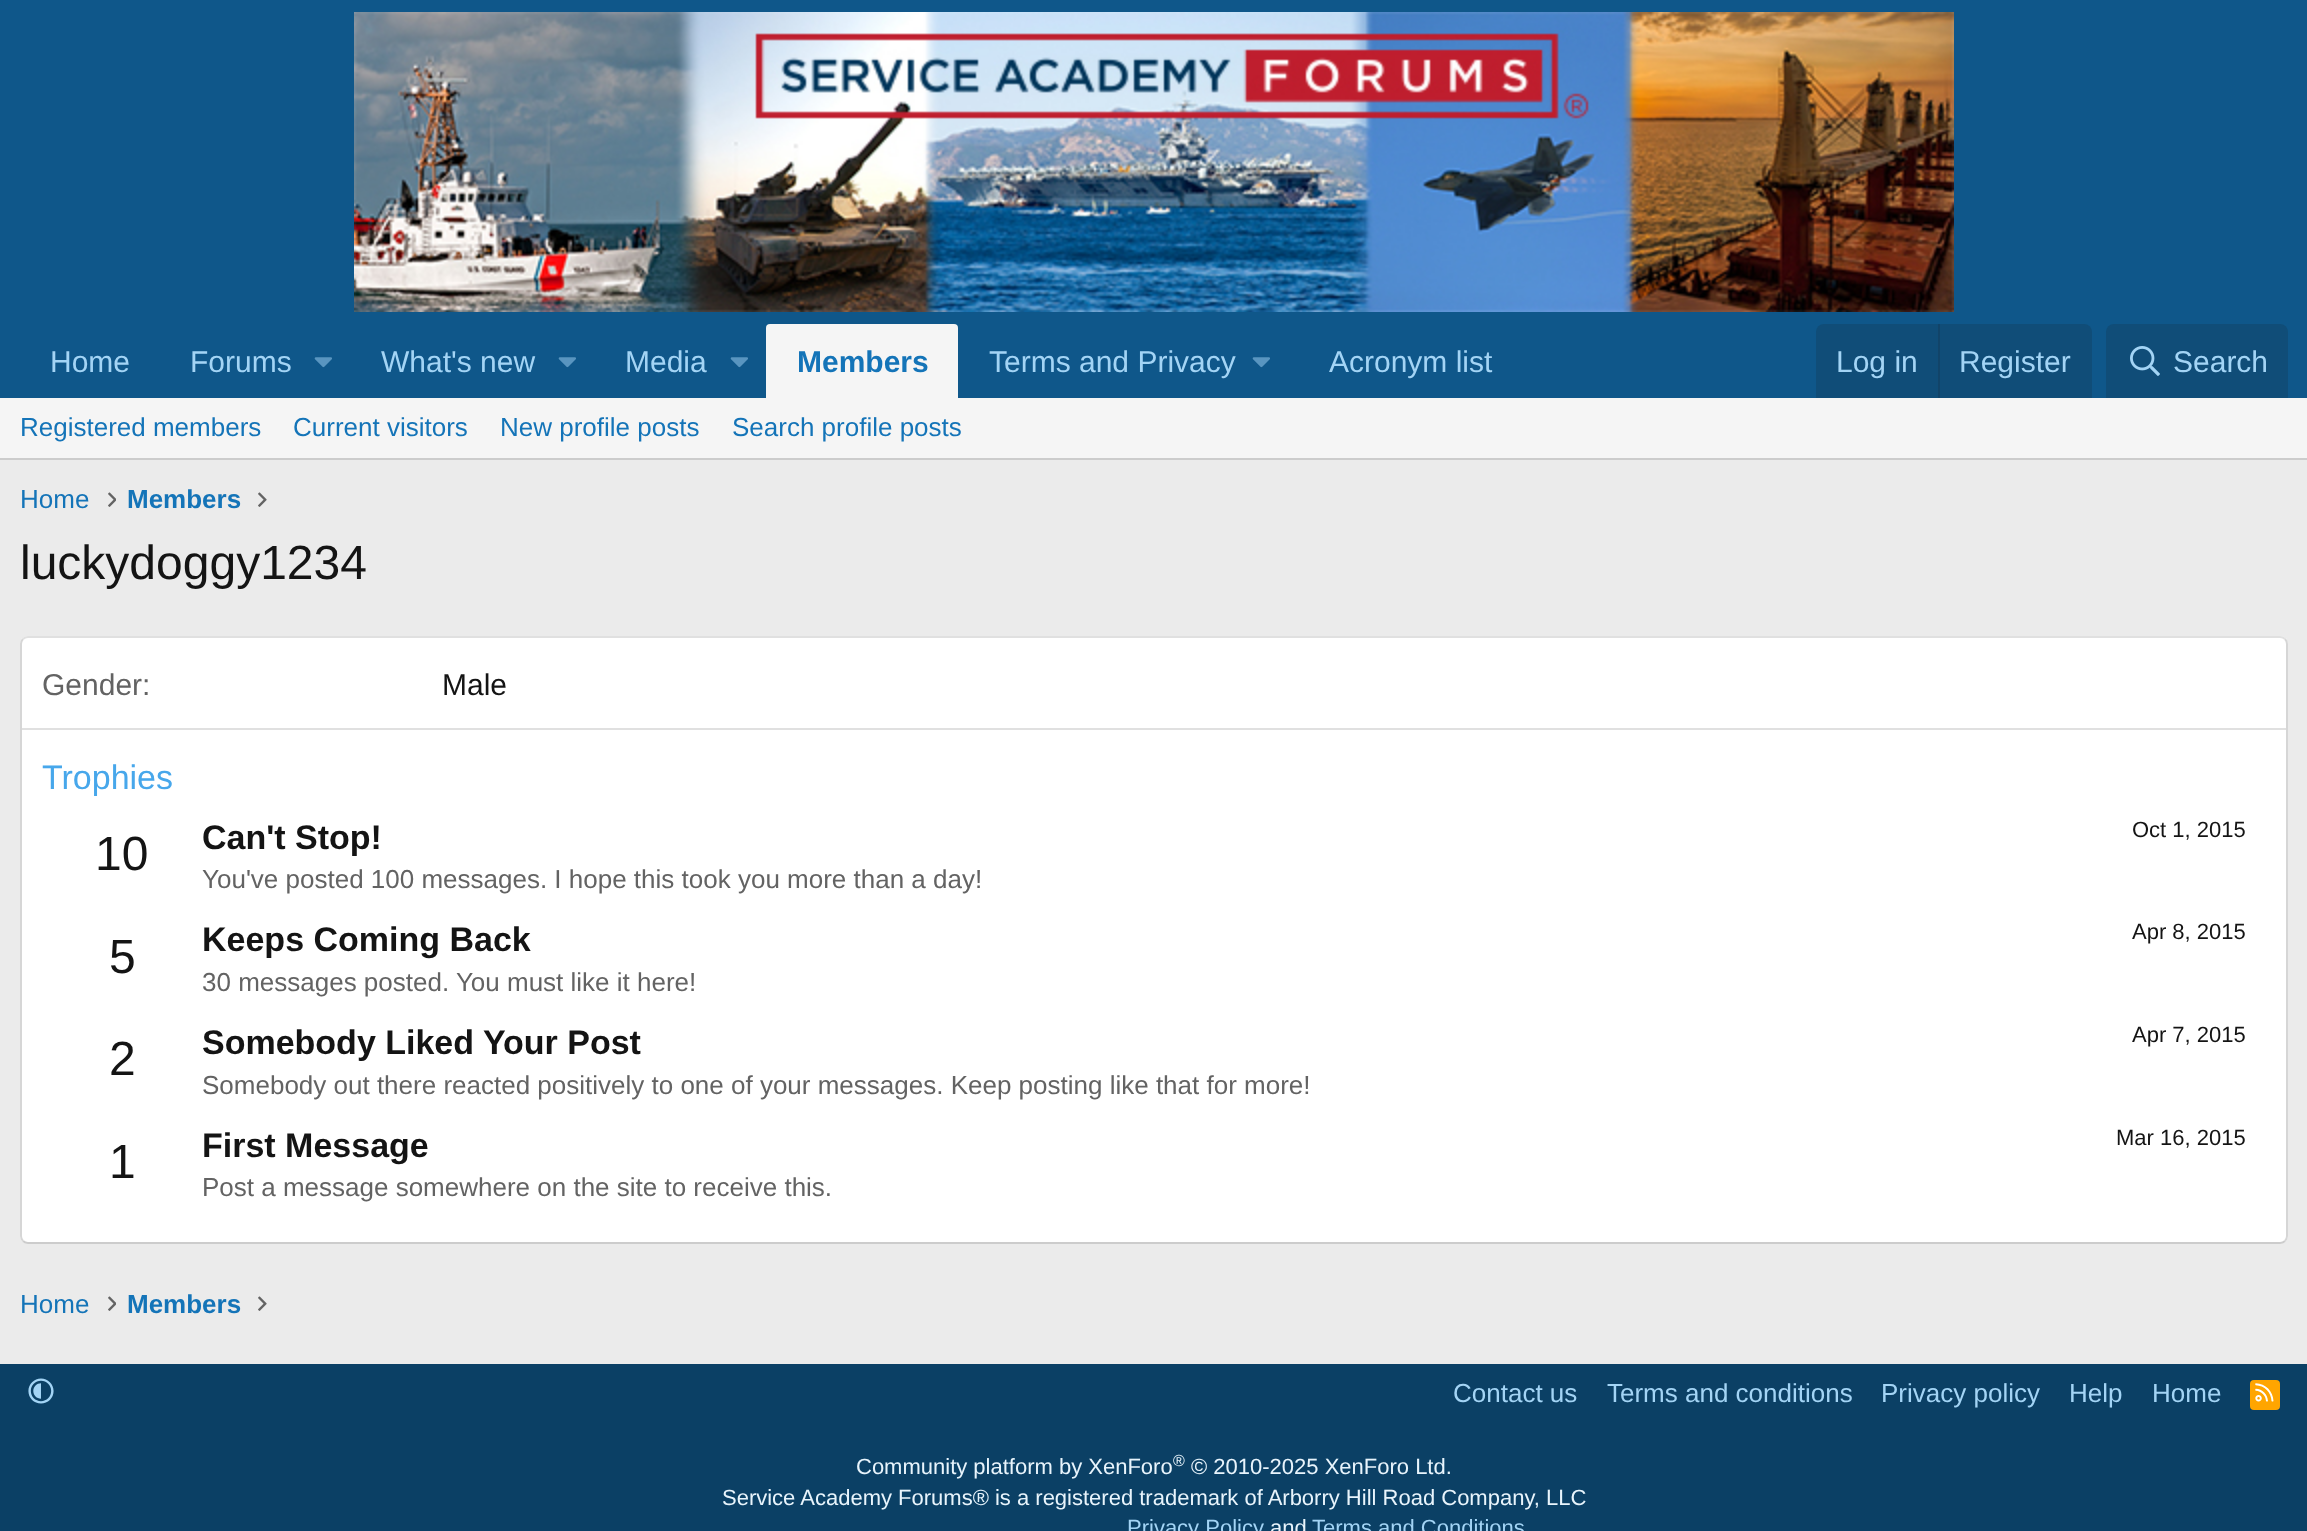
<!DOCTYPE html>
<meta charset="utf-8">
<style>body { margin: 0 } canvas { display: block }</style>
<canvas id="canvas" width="2307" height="1531"></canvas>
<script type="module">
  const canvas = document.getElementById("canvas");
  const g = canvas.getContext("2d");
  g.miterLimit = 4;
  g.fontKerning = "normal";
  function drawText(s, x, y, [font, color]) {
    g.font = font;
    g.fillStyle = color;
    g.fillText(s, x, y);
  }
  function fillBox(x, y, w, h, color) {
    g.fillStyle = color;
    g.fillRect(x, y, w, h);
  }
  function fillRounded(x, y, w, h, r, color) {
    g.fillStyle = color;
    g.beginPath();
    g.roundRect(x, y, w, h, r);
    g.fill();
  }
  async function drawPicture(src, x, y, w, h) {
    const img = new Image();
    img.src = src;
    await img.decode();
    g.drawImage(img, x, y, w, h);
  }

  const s1 = ["30px Liberation Sans", "#A3D4F5"];
  const s2 = ["bold 30px Liberation Sans", "#1474B8"];
  const s3 = ["26px Liberation Sans", "#1474B8"];
  const s4 = ["bold 26px Liberation Sans", "#1474B8"];
  const s5 = ["48px Liberation Sans", "#141414"];
  const s6 = ["30px Liberation Sans", "#636363"];
  const s7 = ["30px Liberation Sans", "#141414"];
  const s8 = ["34px Liberation Sans", "#47A7EB"];
  const s9 = ["bold 34px Liberation Sans", "#141414"];
  const s10 = ["22px Liberation Sans", "#141414"];
  const s11 = ["26px Liberation Sans", "#636363"];
  const s12 = ["26px Liberation Sans", "#A3D4F5"];
  const s13 = ["22px Liberation Sans", "#E8F4FC"];
  const s14 = ["16px Liberation Sans", "#E8F4FC"];
  const s15 = ["22px Liberation Sans", "#A3D4F5"];

  fillBox(0, 0, 2307, 1531, "#EBEBEB");
  fillBox(0, 0, 2307, 398, "#0F578A");
  await drawPicture("pic1.png", 354, 12, 1600, 300);
  drawText("Home", 50, 372, s1);
  drawText("Forums", 190, 372, s1);
  await drawPicture("pic2.png", 314, 357, 18, 11);
  drawText("What's new", 381, 372, s1);
  await drawPicture("pic2.png", 558, 357, 18, 11);
  drawText("Media", 625, 372, s1);
  await drawPicture("pic2.png", 730, 357, 18, 11);
  g.fillStyle = "#F5F5F5";
  g.beginPath();
  g.roundRect(766, 324, 192, 74, [4, 4, 0, 0]);
  g.fill();
  drawText("Members", 797, 372, s2);
  drawText("Terms and Privacy", 989, 372, s1);
  await drawPicture("pic2.png", 1252, 357, 18, 11);
  drawText("Acronym list", 1329, 372, s1);
  g.fillStyle = "#104D78";
  g.beginPath();
  g.roundRect(1816, 324, 276, 74, [8, 8, 0, 0]);
  g.fill();
  drawText("Log in", 1836, 372, s1);
  fillBox(1938, 324, 2, 74, "#114469");
  drawText("Register", 1959, 372, s1);
  g.fillStyle = "#104D78";
  g.beginPath();
  g.roundRect(2106, 324, 182, 74, [8, 8, 0, 0]);
  g.fill();
  await drawPicture("pic3.png", 2130, 346, 30, 30);
  drawText("Search", 2173, 372, s1);
  fillBox(0, 398, 2307, 60, "#F5F5F5");
  fillBox(0, 458, 2307, 2, "#CCCCCC");
  drawText("Registered members", 20, 436, s3);
  drawText("Current visitors", 293, 436, s3);
  drawText("New profile posts", 500, 436, s3);
  drawText("Search profile posts", 732, 436, s3);
  drawText("Home", 20, 508, s3);
  await drawPicture("pic4.png", 108, 492, 8, 15);
  drawText("Members", 127, 508, s4);
  await drawPicture("pic5.png", 258, 492, 9, 15);
  drawText("luckydoggy1234", 20, 579, s5);
  fillRounded(20, 636, 2268, 608, 8, "#FFFFFF");
  g.beginPath();
  g.moveTo(23, 639);
  g.bezierCurveTo(24.5, 637.5, 26, 637, 28, 637);
  g.lineTo(2280, 637);
  g.bezierCurveTo(2282, 637, 2283.5, 637.5, 2285, 639);
  g.strokeStyle = "#E0E0E0";
  g.lineWidth = 2;
  g.stroke();
  g.beginPath();
  g.moveTo(2285, 639);
  g.bezierCurveTo(2286.5, 640.5, 2287, 642, 2287, 644);
  g.lineTo(2287, 1236);
  g.bezierCurveTo(2287, 1238, 2286.5, 1239.5, 2285, 1241);
  g.strokeStyle = "#D6D6D6";
  g.stroke();
  g.beginPath();
  g.moveTo(2285, 1241);
  g.bezierCurveTo(2283.5, 1242.5, 2282, 1243, 2280, 1243);
  g.lineTo(28, 1243);
  g.bezierCurveTo(26, 1243, 24.5, 1242.5, 23, 1241);
  g.strokeStyle = "#CCCCCC";
  g.stroke();
  g.beginPath();
  g.moveTo(23, 1241);
  g.bezierCurveTo(21.5, 1239.5, 21, 1238, 21, 1236);
  g.lineTo(21, 644);
  g.bezierCurveTo(21, 642, 21.5, 640.5, 23, 639);
  g.strokeStyle = "#D6D6D6";
  g.stroke();
  drawText("Gender:", 42, 695, s6);
  drawText("Male", 442, 695, s7);
  fillBox(22, 728, 2264, 2, "#E0E0E0");
  drawText("Trophies", 42, 789, s8);
  drawText("10", 95, 870, s5);
  drawText("Can't Stop!", 202, 849, s9);
  drawText("Oct 1, 2015", 2132, 837, s10);
  drawText("You've posted 100 messages. I hope this took you more than a day!", 202, 888, s11);
  drawText("5", 109, 973, s5);
  drawText("Keeps Coming Back", 202, 951, s9);
  drawText("Apr 8, 2015", 2132, 939, s10);
  drawText("30 messages posted. You must like it here!", 202, 991, s11);
  drawText("2", 109, 1075, s5);
  drawText("Somebody Liked Your Post", 202, 1054, s9);
  drawText("Apr 7, 2015", 2132, 1042, s10);
  drawText("Somebody out there reacted positively to one of your messages. Keep posting like that for more!", 202, 1094, s11);
  drawText("1", 109, 1178, s5);
  drawText("First Message", 202, 1157, s9);
  drawText("Mar 16, 2015", 2116, 1145, s10);
  drawText("Post a message somewhere on the site to receive this.", 202, 1196, s11);
  drawText("Home", 20, 1313, s3);
  await drawPicture("pic4.png", 108, 1296, 8, 15);
  drawText("Members", 127, 1313, s4);
  await drawPicture("pic5.png", 258, 1296, 9, 15);
  fillBox(0, 1364, 2307, 167, "#0B4065");
  await drawPicture("pic6.png", 28, 1378, 26, 26);
  drawText("Contact us", 1453, 1402, s12);
  drawText("Terms and conditions", 1607, 1402, s12);
  drawText("Privacy policy", 1881, 1402, s12);
  drawText("Help", 2069, 1402, s12);
  drawText("Home", 2152, 1402, s12);
  fillRounded(2250, 1380, 30, 30, 4, "#FFA500");
  await drawPicture("pic7.png", 2255, 1383, 19, 19);
  drawText("Community platform by XenForo", 856, 1474, s13);
  drawText("®", 1173, 1466, s14);
  drawText("© 2010-2025 XenForo Ltd.", 1191, 1474, s13);
  drawText("Service Academy Forums® is a registered trademark of Arborry Hill Road Company, LLC", 722, 1505, s13);
  drawText("Privacy Policy", 1127, 1535, s15);
  drawText("and", 1270, 1535, s13);
  drawText("Terms and Conditions", 1312, 1535, s15);
</script>
